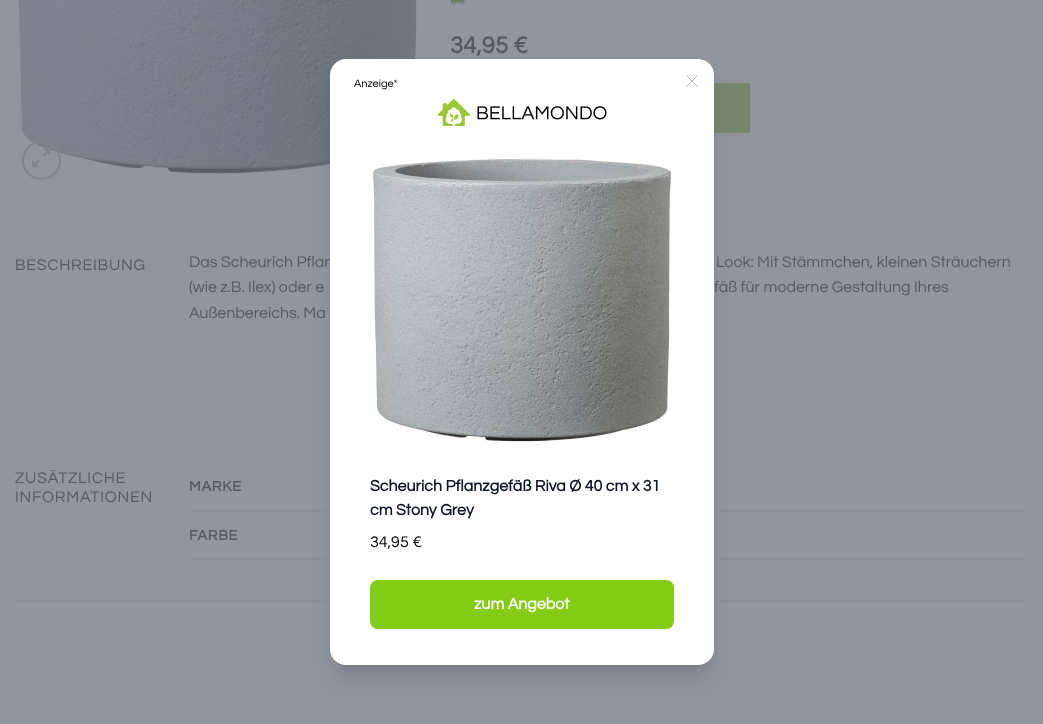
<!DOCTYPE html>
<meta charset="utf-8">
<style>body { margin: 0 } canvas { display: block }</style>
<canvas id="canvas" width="1043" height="724"></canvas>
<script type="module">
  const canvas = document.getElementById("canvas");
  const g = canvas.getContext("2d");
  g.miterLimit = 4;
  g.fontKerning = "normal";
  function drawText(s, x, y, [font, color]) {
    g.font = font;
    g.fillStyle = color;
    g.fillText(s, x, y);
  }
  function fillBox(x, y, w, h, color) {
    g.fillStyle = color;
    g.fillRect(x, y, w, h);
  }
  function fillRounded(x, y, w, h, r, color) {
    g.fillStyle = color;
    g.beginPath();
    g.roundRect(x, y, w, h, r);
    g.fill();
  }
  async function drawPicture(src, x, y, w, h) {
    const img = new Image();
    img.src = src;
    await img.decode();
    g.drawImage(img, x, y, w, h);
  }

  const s1 = ["bold 24px Questrial", "#555A64"];
  const s2 = ["16px Questrial", "#555A64"];
  const s3 = ["bold 14.5px Questrial", "#555A64"];
  const s4 = ["11px Questrial", "#000000"];
  const s5 = ["bold 16px Questrial", "#111827"];
  const s6 = ["16px Questrial", "#000000"];
  const s7 = ["bold 16px Questrial", "#FFFFFF"];

  fillBox(0, 0, 1043, 724, "#9095A0");
  await drawPicture("pic1.png", 17, 0, 400, 174);
  g.beginPath();
  g.arc(41.5, 160.5, 18.5, 0, Math.PI * 2);
  g.strokeStyle = "#808690";
  g.lineWidth = 2;
  g.stroke();
  await drawPicture("pic2.png", 32, 148, 19, 20);
  await drawPicture("pic3.png", 450, 0, 15, 5);
  drawText("34,95 €", 450, 53, s1);
  fillBox(714, 84, 35, 48, "#77876D");
  g.strokeStyle = "#75856D";
  g.lineWidth = 1;
  g.strokeRect(450.5, 83.5, 299, 49);
  fillBox(15, 225, 1013, 1, "#8B919B");
  g.letterSpacing = "0.75px";
  drawText("BESCHREIBUNG", 15, 270, s2);
  g.letterSpacing = "0px";
  drawText("Das Scheurich Pflan", 189, 267, s2);
  drawText("Look: Mit Stämmchen, kleinen Sträuchern", 716, 267, s2);
  drawText("(wie z.B. Ilex) oder e", 189, 292, s2);
  drawText("fäß für moderne Gestaltung Ihres", 714, 292, s2);
  drawText("Außenbereichs. Ma", 189, 318, s2);
  fillBox(15, 438, 1013, 1, "#8B919B");
  g.letterSpacing = "0.75px";
  drawText("ZUSÄTZLICHE", 15, 483, s2);
  drawText("INFORMATIONEN", 15, 502, s2);
  fillBox(188, 511, 142, 1, "#8B919B");
  drawText("MARKE", 189, 491, s3);
  fillBox(714, 511, 314, 1, "#8B919B");
  fillBox(188, 559, 142, 1, "#8B919B");
  drawText("FARBE", 189, 540, s3);
  fillBox(714, 559, 314, 1, "#8B919B");
  fillBox(15, 600, 1013, 1, "#8B919B");
  g.fillStyle = "rgba(0, 0, 0, 0.1)";
  g.filter = "blur(5px)";
  g.beginPath();
  g.roundRect(336, 73, 372, 594, 10);
  g.fill();
  g.filter = "none";
  g.filter = "blur(12.5px)";
  g.beginPath();
  g.roundRect(335, 84, 374, 596, 11);
  g.fill();
  g.filter = "none";
  fillRounded(330, 59, 384, 606, 16, "#FFFFFF");
  g.letterSpacing = "0px";
  drawText("Anzeige*", 354, 87, s4);
  g.beginPath();
  g.moveTo(686.5, 86.5);
  g.lineTo(697.5, 75.5);
  g.moveTo(686.5, 75.5);
  g.lineTo(697.5, 86.5);
  g.strokeStyle = "#9CA3AF";
  g.lineWidth = 0.8;
  g.lineCap = "round";
  g.lineJoin = "round";
  g.stroke();
  await drawPicture("pic4.png", 437, 99, 170, 27);
  await drawPicture("pic5.png", 372, 158, 300, 284);
  drawText("Scheurich Pflanzgefäß Riva Ø 40 cm x 31", 370, 491, s5);
  drawText("cm Stony Grey", 370, 515, s5);
  drawText("34,95 €", 370, 547, s6);
  g.fillStyle = "rgba(0, 0, 0, 0.05)";
  g.filter = "blur(1px)";
  g.beginPath();
  g.roundRect(370, 581, 304, 49, 8);
  g.fill();
  g.filter = "none";
  fillRounded(370, 580, 304, 49, 8, "#84CC16");
  drawText("zum Angebot", 474, 609, s7);
</script>
